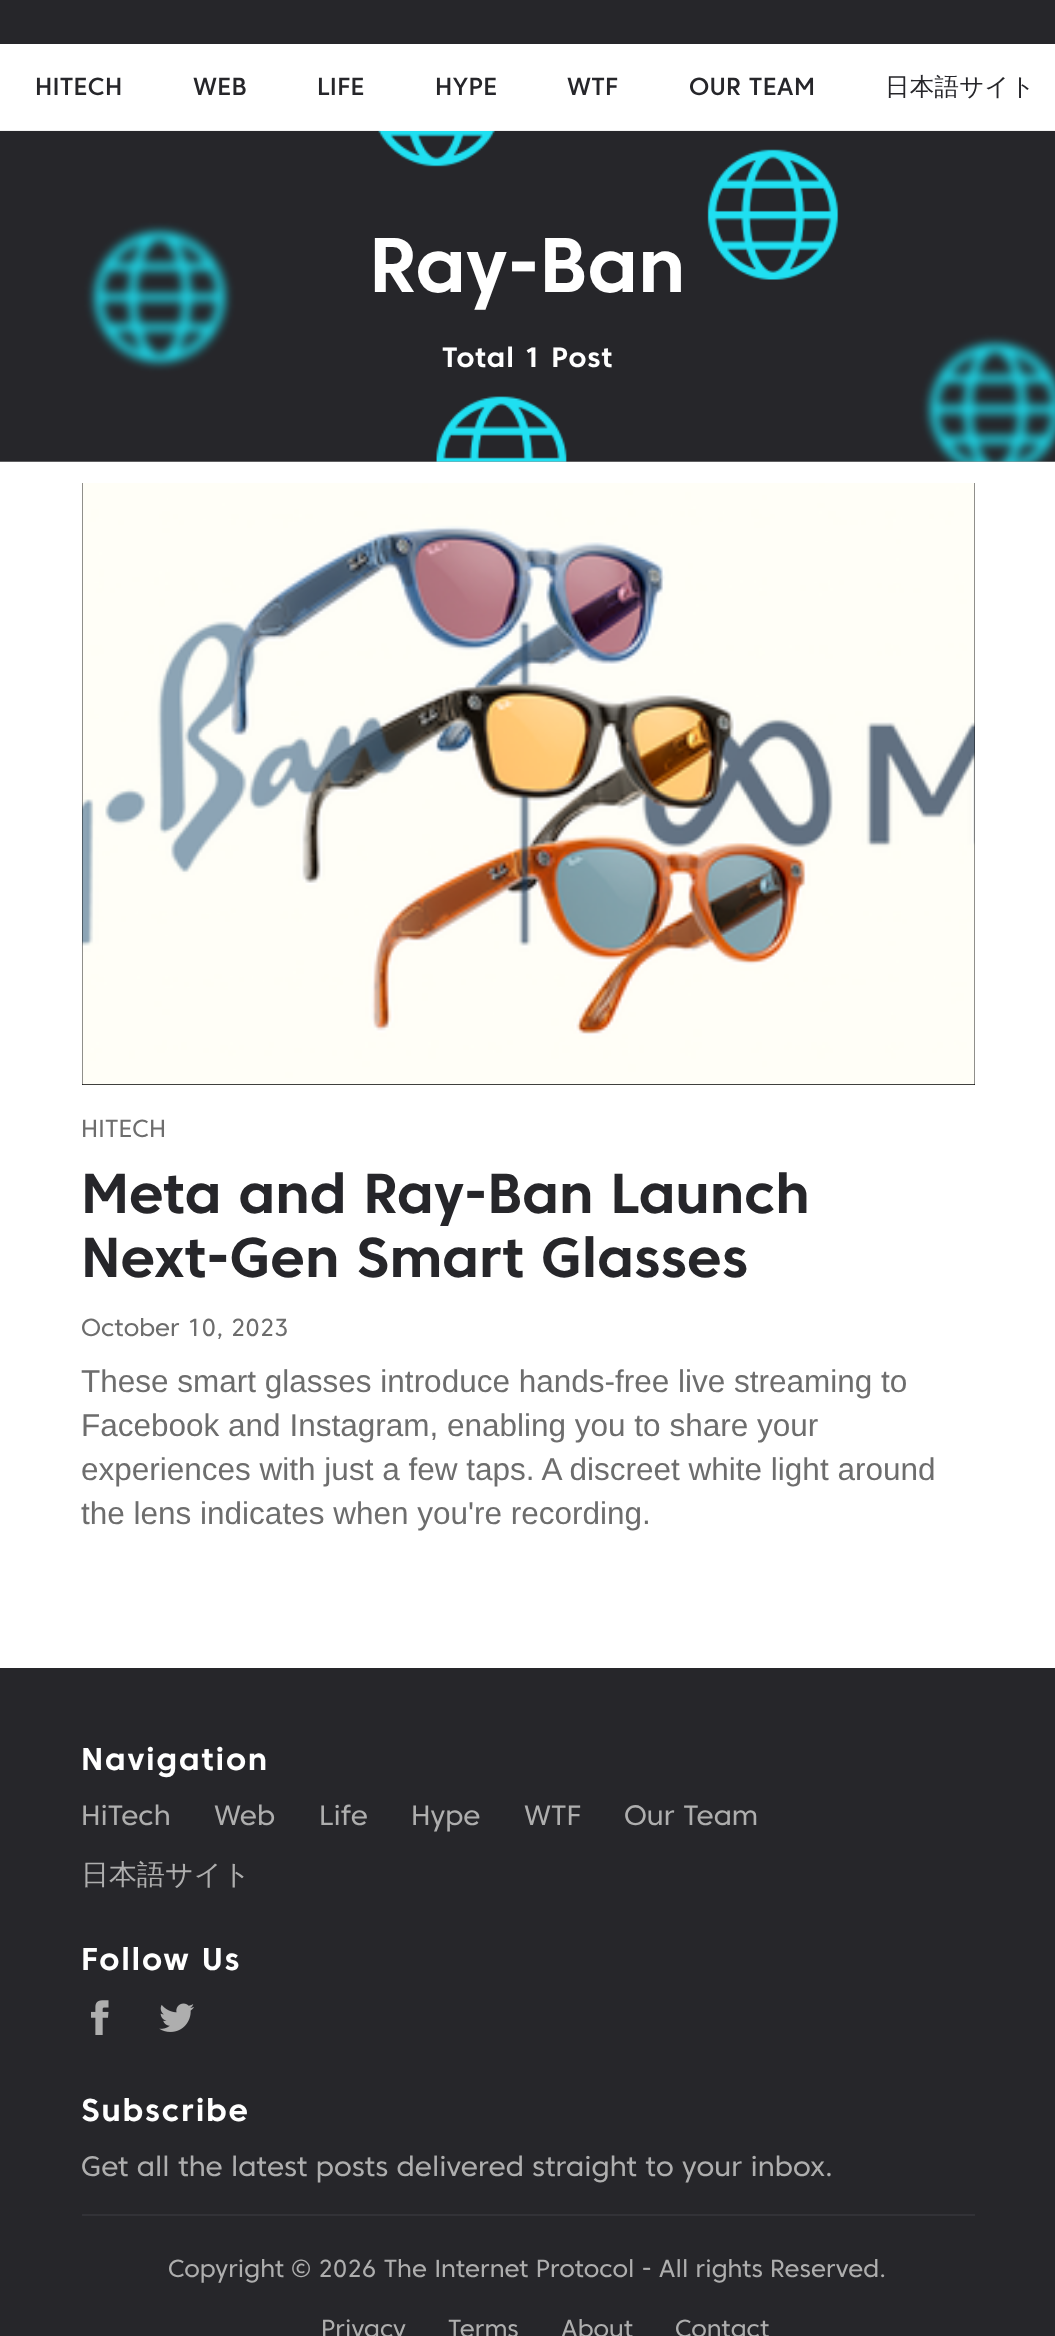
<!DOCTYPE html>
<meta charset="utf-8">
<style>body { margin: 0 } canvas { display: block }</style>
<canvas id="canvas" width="1055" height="2336"></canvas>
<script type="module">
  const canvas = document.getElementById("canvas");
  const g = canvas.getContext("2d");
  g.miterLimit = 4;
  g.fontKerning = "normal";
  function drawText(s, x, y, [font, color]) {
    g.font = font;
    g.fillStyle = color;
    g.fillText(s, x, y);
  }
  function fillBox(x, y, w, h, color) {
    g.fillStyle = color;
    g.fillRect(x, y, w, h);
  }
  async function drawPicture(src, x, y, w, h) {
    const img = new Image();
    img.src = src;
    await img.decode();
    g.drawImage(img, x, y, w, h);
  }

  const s1 = ["500 24.5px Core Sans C", "#26262A"];
  const s2 = ["500 24.5px WenQuanYi Zen Hei", "#26262A"];
  const s3 = ["bold 77px Core Sans C", "#FFFFFF"];
  const s4 = ["bold 28px Core Sans C", "#FFFFFF"];
  const s5 = ["24.5px Core Sans C", "#6D6D6D"];
  const s6 = ["bold 56px Core Sans C", "#26262A"];
  const s7 = ["31.5px Liberation Sans", "#6D6D6D"];
  const s8 = ["bold 31.5px Core Sans C", "#FFFFFF"];
  const s9 = ["28px Core Sans C", "#AEAEAE"];
  const s10 = ["500 28px WenQuanYi Zen Hei", "#AEAEAE"];
  const s11 = ["24.5px Core Sans C", "#AEAEAE"];

  fillBox(0, 0, 1055, 2336, "#FFFFFF");
  fillBox(0, 0, 1055, 44, "#26262A");
  g.letterSpacing = "0.25px";
  drawText("HITECH", 35, 95, s1);
  drawText("WEB", 193, 95, s1);
  drawText("LIFE", 317, 95, s1);
  drawText("HYPE", 435, 95, s1);
  drawText("WTF", 567, 95, s1);
  drawText("OUR TEAM", 689, 95, s1);
  drawText("日本語サイト", 885, 95, s2);
  fillBox(0, 461, 1055, 1, "rgba(0, 0, 0, 0.4)");
  await drawPicture("pic1.png", 0, 130, 1055, 332);
  g.letterSpacing = "0px";
  drawText("Ray-Ban", 369, 292, s3);
  g.letterSpacing = "0.9px";
  drawText("Total 1 Post", 442, 367, s4);
  fillBox(82, 483, 893, 602, "#000000");
  await drawPicture("pic2.png", 82, 483, 893, 602);
  g.letterSpacing = "0px";
  drawText("HITECH", 81, 1137, s5);
  drawText("Meta and Ray-Ban Launch", 81, 1213, s6);
  drawText("Next-Gen Smart Glasses", 81, 1277, s6);
  drawText("October 10, 2023", 81, 1336, s5);
  drawText("These smart glasses introduce hands-free live streaming to", 81, 1392, s7);
  drawText("Facebook and Instagram, enabling you to share your", 81, 1436, s7);
  drawText("experiences with just a few taps. A discreet white light around", 81, 1480, s7);
  drawText("the lens indicates when you're recording.", 81, 1524, s7);
  fillBox(0, 1668, 1055, 668, "#26262A");
  g.letterSpacing = "1.75px";
  drawText("Navigation", 81, 1770, s8);
  g.letterSpacing = "0px";
  drawText("HiTech", 81, 1825, s9);
  drawText("Web", 214, 1825, s9);
  drawText("Life", 319, 1825, s9);
  drawText("Hype", 411, 1825, s9);
  drawText("WTF", 524, 1825, s9);
  drawText("Our Team", 624, 1825, s9);
  drawText("日本語サイト", 81, 1884, s10);
  g.letterSpacing = "1.75px";
  drawText("Follow Us", 81, 1970, s8);
  await drawPicture("pic3.png", 91, 2000, 18, 35);
  await drawPicture("pic4.png", 159, 2003, 35, 29);
  drawText("Subscribe", 81, 2121, s8);
  g.letterSpacing = "0px";
  drawText("Get all the latest posts delivered straight to your inbox.", 81, 2176, s9);
  fillBox(82, 2214, 893, 2, "#323237");
  drawText("Copyright © 2026 The Internet Protocol - All rights Reserved.", 168, 2277, s11);
  drawText("Privacy", 321, 2337, s11);
  drawText("Terms", 448, 2337, s11);
  drawText("About", 561, 2337, s11);
  drawText("Contact", 675, 2337, s11);
</script>
